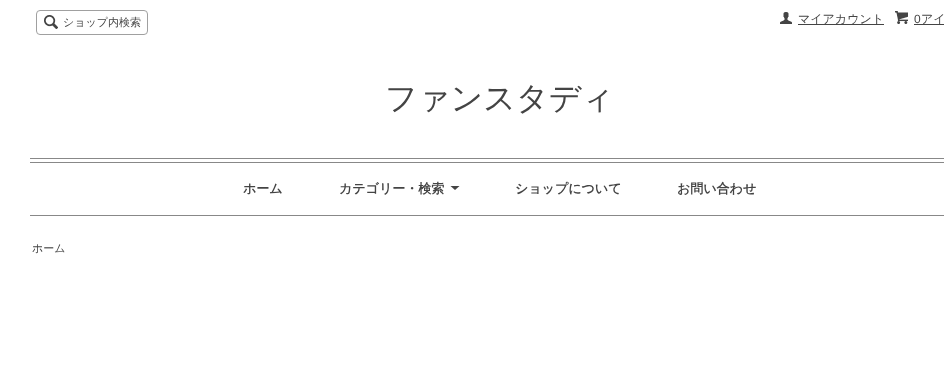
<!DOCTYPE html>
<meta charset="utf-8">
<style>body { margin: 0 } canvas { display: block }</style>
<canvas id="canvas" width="944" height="385"></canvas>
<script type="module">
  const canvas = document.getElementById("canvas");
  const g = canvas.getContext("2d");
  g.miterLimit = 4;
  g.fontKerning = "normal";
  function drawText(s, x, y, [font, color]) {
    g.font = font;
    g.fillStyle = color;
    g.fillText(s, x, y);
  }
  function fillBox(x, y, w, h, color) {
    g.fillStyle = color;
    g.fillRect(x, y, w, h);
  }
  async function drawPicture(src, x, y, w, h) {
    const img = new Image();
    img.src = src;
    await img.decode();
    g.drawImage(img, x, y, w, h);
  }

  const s1 = ["500 11px WenQuanYi Zen Hei", "#444444"];
  const s2 = ["500 12px WenQuanYi Zen Hei", "#444444"];
  const s3 = ["12px Liberation Sans", "#444444"];
  const s4 = ["500 32px WenQuanYi Zen Hei", "#444444"];
  const s5 = ["bold 13px WenQuanYi Zen Hei", "#444444"];

  fillBox(0, 0, 944, 385, "#FFFFFF");
  g.beginPath();
  g.roundRect(36.5, 10.5, 111, 24, 3.5);
  g.strokeStyle = "#A0A0A0";
  g.stroke();
  await drawPicture("pic1.png", 44, 15, 14, 14);
  drawText("ショップ内検索", 63, 26, s1);
  await drawPicture("pic2.png", 780, 12, 12, 12);
  fillBox(798, 24, 86, 1, "#444444");
  drawText("マイアカウント", 798, 23, s2);
  await drawPicture("pic3.png", 895, 11, 13, 13);
  drawText("0", 914, 23, s3);
  fillBox(914, 24, 30, 1, "#444444");
  drawText("アイ", 921, 23, s2);
  fillBox(30, 158, 914, 1, "#888888");
  drawText("ファンスタディ", 385, 109, s4);
  fillBox(30, 162, 914, 1, "#888888");
  fillBox(30, 215, 914, 1, "#888888");
  drawText("ホーム", 243, 193, s5);
  drawText("カテゴリー・検索", 339, 193, s5);
  await drawPicture("pic4.png", 450, 186, 10, 4);
  drawText("ショップについて", 515, 193, s5);
  drawText("お問い合わせ", 677, 193, s5);
  drawText("ホーム", 32, 252, s1);
</script>
